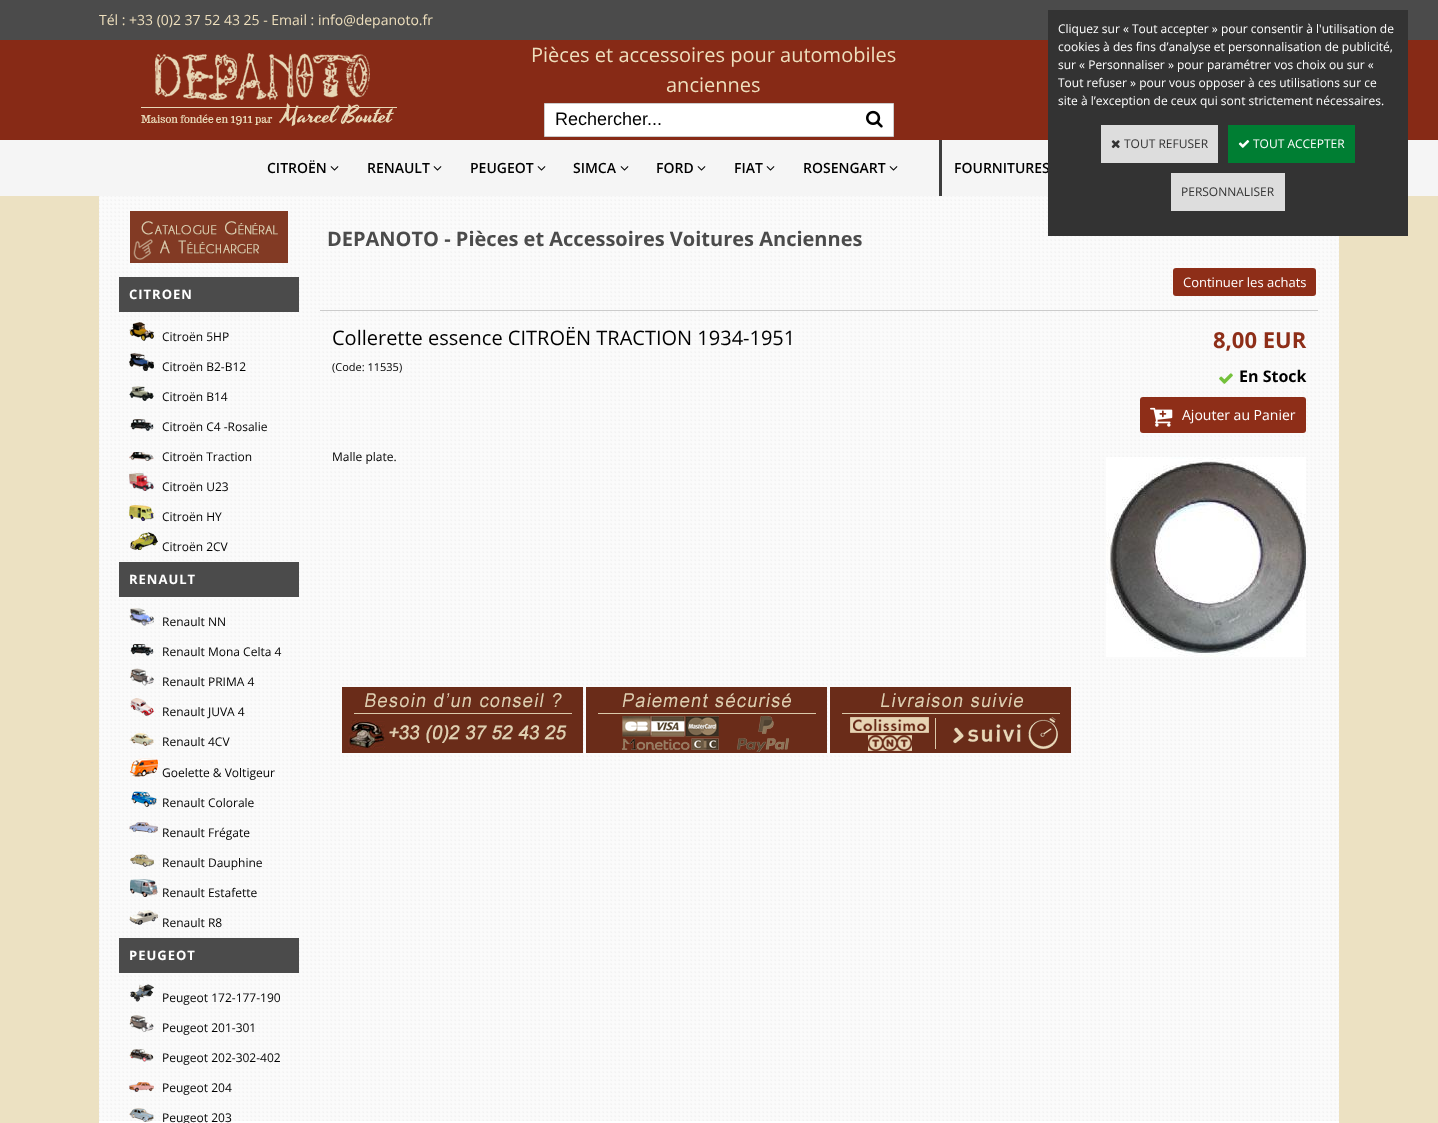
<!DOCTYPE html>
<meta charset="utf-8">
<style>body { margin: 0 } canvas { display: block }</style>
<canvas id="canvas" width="1438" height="1123"></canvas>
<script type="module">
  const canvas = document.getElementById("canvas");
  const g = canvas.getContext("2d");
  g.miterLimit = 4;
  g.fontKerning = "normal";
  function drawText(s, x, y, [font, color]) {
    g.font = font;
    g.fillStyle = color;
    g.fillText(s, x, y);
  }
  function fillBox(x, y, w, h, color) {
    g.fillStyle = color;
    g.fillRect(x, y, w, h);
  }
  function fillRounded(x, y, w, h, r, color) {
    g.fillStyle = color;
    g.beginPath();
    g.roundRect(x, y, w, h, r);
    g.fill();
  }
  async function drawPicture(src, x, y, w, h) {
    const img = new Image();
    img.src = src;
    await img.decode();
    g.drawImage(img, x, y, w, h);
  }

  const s1 = ["14px Open Sans", "#EEDFBD"];
  const s2 = ["20px Open Sans", "#EEDFBD"];
  const s3 = ["18px Liberation Sans", "#000000"];
  const s4 = ["600 14px Open Sans", "#000000"];
  const s5 = ["12px Open Sans", "#FFFFFF"];
  const s6 = ["12px Open Sans", "#333333"];
  const s7 = ["bold 13px Open Sans", "#FFFFFF"];
  const s8 = ["12px Open Sans", "#000000"];
  const s9 = ["bold 20px Open Sans", "#4B4B4B"];
  const s10 = ["13px Open Sans", "#FFFFFF"];
  const s11 = ["20px Open Sans", "#000000"];
  const s12 = ["11px Open Sans", "#000000"];
  const s13 = ["bold 22px Open Sans", "#8E2E18"];
  const s14 = ["bold 16px Open Sans", "#000000"];
  const s15 = ["14px Open Sans", "#FFFFFF"];

  fillBox(0, 0, 1438, 1123, "#ECE1C2");
  fillBox(0, 40, 1438, 100, "#872A16");
  fillBox(0, 140, 1438, 56, "#F5F5F5");
  fillBox(0, 0, 1438, 40, "#4B4B4B");
  drawText("Tél : +33 (0)2 37 52 43 25 - Email : info@depanoto.fr", 99, 25, s1);
  await drawPicture("pic1.png", 141, 53, 256, 74);
  drawText("Pièces et accessoires pour automobiles", 531, 62, s2);
  drawText("anciennes", 666, 92, s2);
  g.fillStyle = "#FFFFFF";
  g.beginPath();
  g.rect(544.5, 103.5, 349, 33);
  g.fill();
  g.strokeStyle = "#CCCCCC";
  g.stroke();
  drawText("Rechercher...", 555, 125, s3);
  await drawPicture("pic2.png", 866, 110, 17, 18);
  drawText("CITROËN", 267, 173, s4);
  await drawPicture("pic3.png", 330, 166, 9, 5);
  drawText("RENAULT", 367, 173, s4);
  await drawPicture("pic3.png", 433, 166, 9, 5);
  drawText("PEUGEOT", 470, 173, s4);
  await drawPicture("pic3.png", 537, 166, 9, 5);
  drawText("SIMCA", 573, 173, s4);
  await drawPicture("pic3.png", 620, 166, 9, 5);
  drawText("FORD", 656, 173, s4);
  await drawPicture("pic3.png", 697, 166, 9, 5);
  drawText("FIAT", 734, 173, s4);
  await drawPicture("pic3.png", 766, 166, 9, 5);
  drawText("ROSENGART", 803, 173, s4);
  await drawPicture("pic3.png", 889, 166, 9, 5);
  fillBox(939, 140, 3, 56, "#3D3D3D");
  drawText("FOURNITURES", 954, 173, s4);
  fillBox(99, 196, 1240, 927, "#FFFFFF");
  await drawPicture("pic6.png", 99, 196, 1240, 925);
  fillBox(1048, 10, 360, 226, "#333333");
  drawText("Cliquez sur « Tout accepter » pour consentir à l'utilisation de", 1058, 33, s5);
  drawText("cookies à des fins d’analyse et personnalisation de publicité,", 1058, 51, s5);
  drawText("sur « Personnaliser » pour paramétrer vos choix ou sur «", 1058, 69, s5);
  drawText("Tout refuser » pour vous opposer à ces utilisations sur ce", 1058, 87, s5);
  drawText("site à l’exception de ceux qui sont strictement nécessaires.", 1058, 105, s5);
  fillBox(1101, 125, 117, 38, "#DDDDDD");
  await drawPicture("pic4.png", 1111, 140, 9, 9);
  drawText("TOUT REFUSER", 1124, 148, s6);
  fillBox(1228, 125, 127, 38, "#007E33");
  await drawPicture("pic5.png", 1238, 140, 12, 8);
  drawText("TOUT ACCEPTER", 1253, 148, s5);
  fillBox(1171, 173, 114, 38, "#DDDDDD");
  drawText("PERSONNALISER", 1181, 196, s6);
  await drawPicture("pic7.png", 130, 211, 158, 52);
  fillBox(119, 277, 180, 35, "#4B4B4B");
  g.letterSpacing = "1px";
  drawText("CITROEN", 129, 299, s7);
  await drawPicture("pic8.png", 129, 322, 25, 19);
  g.letterSpacing = "0px";
  drawText("Citroën 5HP", 162, 341, s8);
  await drawPicture("pic9.png", 129, 353, 25, 18);
  drawText("Citroën B2-B12", 162, 371, s8);
  await drawPicture("pic10.png", 129, 386, 25, 15);
  drawText("Citroën B14", 162, 401, s8);
  await drawPicture("pic11.png", 129, 419, 25, 12);
  drawText("Citroën C4 -Rosalie", 162, 431, s8);
  await drawPicture("pic12.png", 129, 452, 25, 9);
  drawText("Citroën Traction", 162, 461, s8);
  await drawPicture("pic13.png", 129, 473, 25, 18);
  drawText("Citroën U23", 162, 491, s8);
  await drawPicture("pic14.png", 129, 505, 25, 16);
  drawText("Citroën HY", 162, 521, s8);
  await drawPicture("pic15.png", 130, 532, 28, 18);
  drawText("Citroën 2CV", 162, 551, s8);
  fillBox(119, 562, 180, 35, "#4B4B4B");
  g.letterSpacing = "1px";
  drawText("RENAULT", 129, 584, s7);
  await drawPicture("pic16.png", 129, 608, 25, 18);
  g.letterSpacing = "0px";
  drawText("Renault NN", 162, 626, s8);
  await drawPicture("pic17.png", 130, 644, 24, 12);
  drawText("Renault Mona Celta 4", 162, 656, s8);
  await drawPicture("pic18.png", 130, 668, 24, 18);
  drawText("Renault PRIMA 4", 162, 686, s8);
  await drawPicture("pic19.png", 130, 698, 24, 18);
  drawText("Renault JUVA 4", 162, 716, s8);
  await drawPicture("pic20.png", 129, 733, 25, 13);
  drawText("Renault 4CV", 162, 746, s8);
  await drawPicture("pic21.png", 129, 758, 29, 19);
  drawText("Goelette & Voltigeur", 162, 777, s8);
  await drawPicture("pic22.png", 131, 791, 26, 16);
  drawText("Renault Colorale", 162, 807, s8);
  await drawPicture("pic23.png", 129, 822, 29, 11);
  drawText("Renault Frégate", 162, 837, s8);
  await drawPicture("pic24.png", 130, 854, 24, 13);
  drawText("Renault Dauphine", 162, 867, s8);
  await drawPicture("pic25.png", 130, 879, 28, 18);
  drawText("Renault Estafette", 162, 897, s8);
  await drawPicture("pic26.png", 129, 910, 29, 15);
  drawText("Renault R8", 162, 927, s8);
  fillBox(119, 938, 180, 35, "#4B4B4B");
  g.letterSpacing = "1px";
  drawText("PEUGEOT", 129, 960, s7);
  await drawPicture("pic27.png", 130, 984, 24, 18);
  g.letterSpacing = "0px";
  drawText("Peugeot 172-177-190", 162, 1002, s8);
  await drawPicture("pic28.png", 129, 1015, 25, 17);
  drawText("Peugeot 201-301", 162, 1032, s8);
  await drawPicture("pic29.png", 129, 1049, 25, 13);
  drawText("Peugeot 202-302-402", 162, 1062, s8);
  await drawPicture("pic30.png", 129, 1082, 25, 10);
  drawText("Peugeot 204", 162, 1092, s8);
  await drawPicture("pic31.png", 129, 1108, 25, 14);
  drawText("Peugeot 203", 162, 1122, s8);
  drawText("DEPANOTO - Pièces et Accessoires Voitures Anciennes", 327, 246, s9);
  fillRounded(1173, 268, 143, 28, 3, "#8E2E18");
  drawText("Continuer les achats", 1183, 287, s10);
  fillBox(320, 310, 998, 1, "#CCCCCC");
  drawText("Collerette essence CITROËN TRACTION 1934-1951", 332, 345, s11);
  drawText("(Code: 11535)", 332, 371, s12);
  drawText("8,00 EUR", 1213, 348, s13);
  await drawPicture("pic32.png", 1219, 373, 14, 11);
  drawText("En Stock", 1239, 382, s14);
  fillRounded(1140, 397, 166, 36, 3, "#8E2E18");
  await drawPicture("pic33.png", 1150, 407, 23, 20);
  drawText("Ajouter au Panier", 1182, 420, s15);
  drawText("Malle plate.", 332, 461, s8);
  await drawPicture("pic34.png", 1106, 457, 200, 200);
  await drawPicture("pic35.png", 342, 687, 241, 66);
  await drawPicture("pic36.png", 586, 687, 241, 66);
  await drawPicture("pic37.png", 830, 687, 241, 66);
</script>
